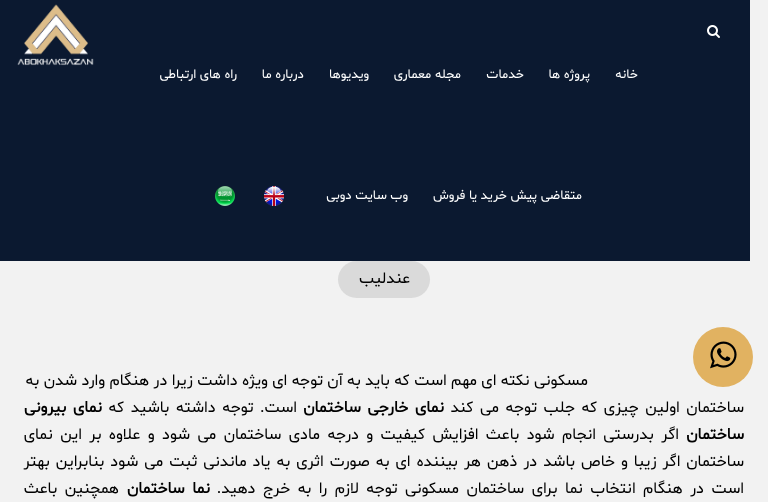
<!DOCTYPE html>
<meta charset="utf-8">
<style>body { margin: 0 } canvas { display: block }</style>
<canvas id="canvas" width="768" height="502"></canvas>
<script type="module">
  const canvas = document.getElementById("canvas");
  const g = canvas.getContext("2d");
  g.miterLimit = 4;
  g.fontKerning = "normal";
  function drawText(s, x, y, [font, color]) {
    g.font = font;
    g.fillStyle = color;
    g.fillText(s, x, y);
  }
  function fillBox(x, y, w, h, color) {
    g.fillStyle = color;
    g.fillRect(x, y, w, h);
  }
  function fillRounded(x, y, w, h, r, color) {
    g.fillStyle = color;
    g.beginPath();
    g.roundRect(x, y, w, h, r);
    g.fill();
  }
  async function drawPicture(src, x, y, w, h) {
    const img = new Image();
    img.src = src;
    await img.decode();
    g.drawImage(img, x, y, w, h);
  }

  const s1 = ["13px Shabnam", "#FFFFFF"];
  const s2 = ["16px Shabnam", "#000000"];
  const s3 = ["bold 16px Shabnam", "#000000"];

  fillBox(0, 0, 768, 502, "#F2F2F2");
  fillBox(0, 0, 750, 261, "#0B1930");
  await drawPicture("pic1.png", 707, 25, 13, 13);
  await drawPicture("pic2.png", 17, 4, 77, 62);
  g.direction = "rtl";
  drawText("خانه", 638, 78, s1);
  drawText("پروژه ها", 590, 78, s1);
  drawText("خدمات", 524, 78, s1);
  drawText("مجله معماری", 461, 78, s1);
  drawText("ویدیوها", 369, 78, s1);
  drawText("درباره ما", 304, 78, s1);
  drawText("راه های ارتباطی", 237, 78, s1);
  drawText("متقاضی پیش خرید یا فروش", 582, 199, s1);
  drawText("وب سایت دوبی", 408, 199, s1);
  await drawPicture("pic3.png", 264, 186, 20, 20);
  await drawPicture("pic4.png", 215, 186, 20, 20);
  fillRounded(338, 261, 92, 37, 18.5, "#DADADA");
  drawText("عندلیب", 410, 283, s2);
  g.fillStyle = "#E1B261";
  g.beginPath();
  g.arc(723, 357, 30, 0, Math.PI * 2);
  g.fill();
  await drawPicture("pic5.png", 710, 341, 27, 28);
  drawText("مسکونی نکته ای مهم است که باید به آن توجه ای ویژه داشت زیرا در هنگام وارد شدن به", 588, 385, s2);
  g.wordSpacing = "2.25px";
  drawText("ساختمان اولین چیزی که جلب توجه می کند", 744, 412, s2);
  drawText("نمای خارجی ساختمان", 444, 412, s3);
  drawText("است. توجه داشته باشید که", 297, 412, s2);
  drawText("نمای بیرونی", 102, 412, s3);
  g.wordSpacing = "0px";
  drawText("ساختمان", 744, 439, s3);
  g.wordSpacing = "3px";
  drawText("اگر بدرستی انجام شود باعث افزایش کیفیت و درجه مادی ساختمان می شود و علاوه بر این نمای", 679, 439, s2);
  g.wordSpacing = "1.6px";
  drawText("ساختمان اگر زیبا و خاص باشد در ذهن هر بیننده ای به صورت اثری به یاد ماندنی ثبت می شود بنابراین بهتر", 744, 466, s2);
  g.wordSpacing = "3.1px";
  drawText("است در هنگام انتخاب نما برای ساختمان مسکونی توجه لازم را به خرج دهید.", 744, 493, s2);
  drawText("نما ساختمان", 210, 493, s3);
  drawText("همچنین باعث", 119, 493, s2);
</script>
